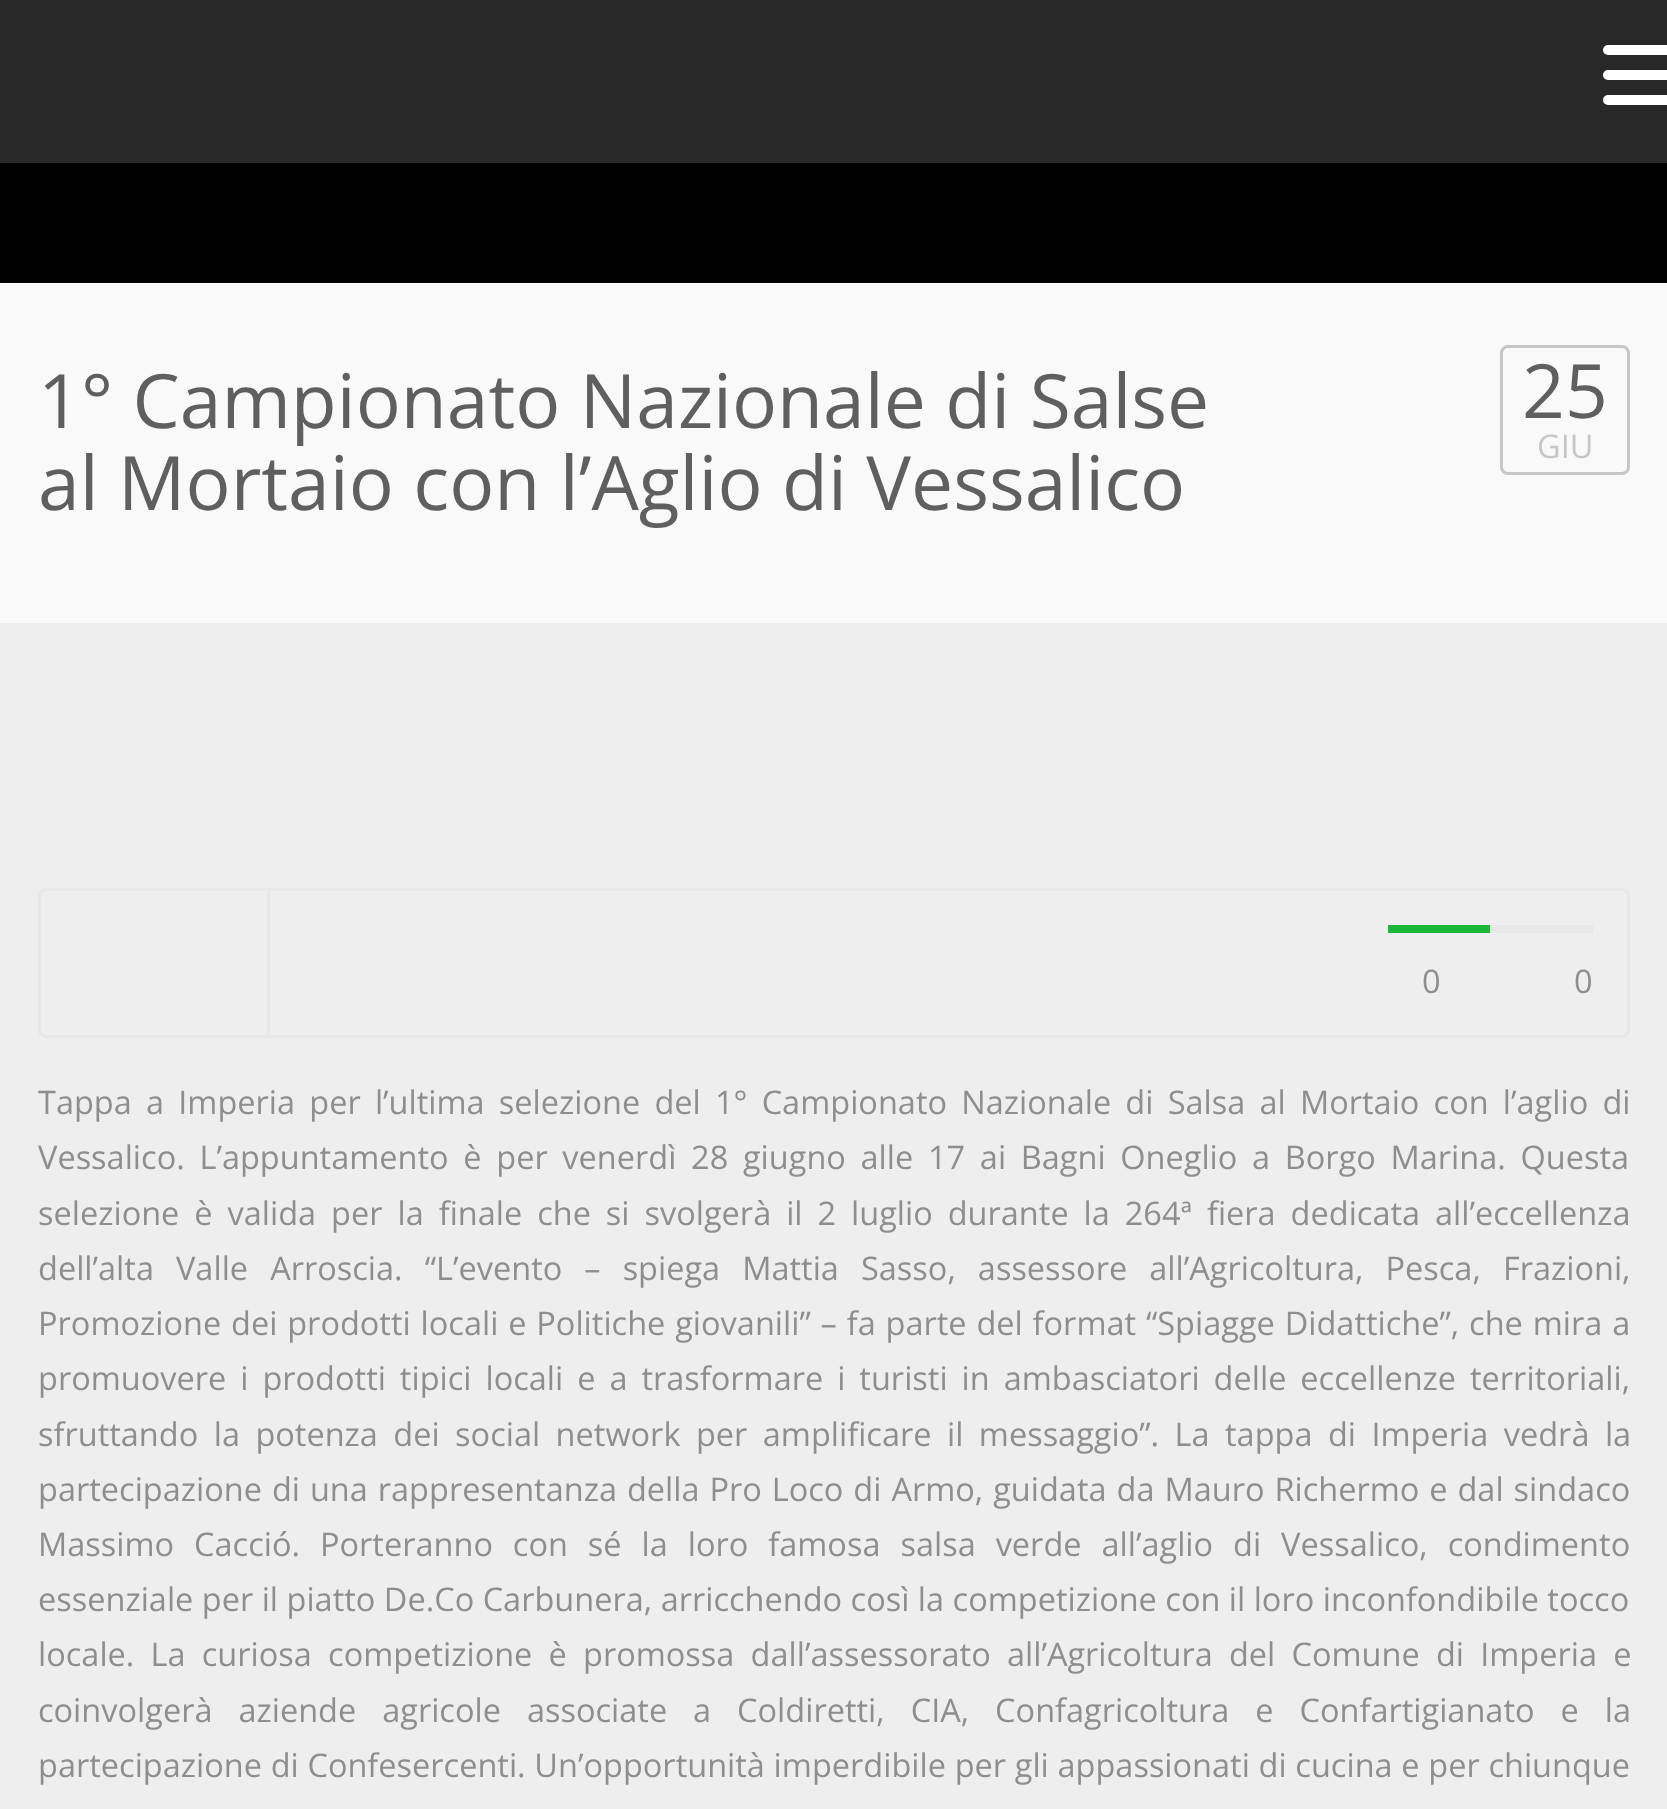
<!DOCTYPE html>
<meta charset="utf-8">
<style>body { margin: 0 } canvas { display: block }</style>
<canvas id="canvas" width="1667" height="1809"></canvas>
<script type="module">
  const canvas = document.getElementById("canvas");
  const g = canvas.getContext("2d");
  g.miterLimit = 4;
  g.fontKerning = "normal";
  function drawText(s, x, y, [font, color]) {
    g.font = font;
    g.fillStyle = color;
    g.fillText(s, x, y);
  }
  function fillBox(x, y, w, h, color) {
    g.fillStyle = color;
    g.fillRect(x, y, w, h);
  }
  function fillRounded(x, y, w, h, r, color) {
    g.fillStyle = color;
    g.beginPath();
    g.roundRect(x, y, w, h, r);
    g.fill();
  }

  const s1 = ["75px Open Sans", "#5F5F5F"];
  const s2 = ["32.5px Open Sans", "#C6C6C6"];
  const s3 = ["32.5px Open Sans", "#8E8E8E"];

  fillBox(0, 0, 1667, 1809, "#EEEEEE");
  fillBox(0, 0, 1667, 163, "#282828");
  fillRounded(1603, 45, 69, 10, 5, "#FFFFFF");
  fillRounded(1603, 70, 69, 10, 5, "#FFFFFF");
  fillRounded(1603, 95, 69, 10, 5, "#FFFFFF");
  fillBox(0, 163, 1667, 120, "#000000");
  fillBox(0, 283, 1667, 340, "#F9F9F9");
  drawText("1° Campionato Nazionale di Salse", 38, 428, s1);
  drawText("al Mortaio con l’Aglio di Vessalico", 38, 510, s1);
  g.beginPath();
  g.roundRect(1501.5, 346.5, 127, 127, 6.5);
  g.strokeStyle = "#C6C6C6";
  g.lineWidth = 3;
  g.stroke();
  drawText("25", 1522, 418, s1);
  drawText("GIU", 1537, 458, s2);
  g.beginPath();
  g.roundRect(39.5, 889.5, 1589, 147, 6.5);
  g.strokeStyle = "#E7E7E7";
  g.stroke();
  g.fillStyle = "#E7E7E7";
  g.beginPath();
  g.moveTo(45, 890);
  g.lineTo(270, 890);
  g.lineTo(270, 1035);
  g.lineTo(267, 1035);
  g.lineTo(267, 891);
  g.lineTo(42, 891);
  g.closePath();
  g.moveTo(41, 892);
  g.lineTo(40, 895);
  g.lineTo(40, 1030);
  g.lineTo(41, 1033);
  g.closePath();
  g.fill("evenodd");
  fillBox(1490, 925, 103, 8, "#E7E7E7");
  fillBox(1388, 925, 102, 8, "#18B736");
  drawText("0", 1422, 993, s3);
  drawText("0", 1574, 993, s3);
  g.wordSpacing = "5.75px";
  drawText("Tappa a Imperia per l’ultima selezione del 1° Campionato Nazionale di Salsa al Mortaio con l’aglio di", 38, 1114, s3);
  g.wordSpacing = "6.25px";
  drawText("Vessalico. L’appuntamento è per venerdì 28 giugno alle 17 ai Bagni Oneglio a Borgo Marina. Questa", 38, 1169, s3);
  g.wordSpacing = "6.5px";
  drawText("selezione è valida per la finale che si svolgerà il 2 luglio durante la 264ª fiera dedicata all’eccellenza", 38, 1225, s3);
  g.wordSpacing = "13.6px";
  drawText("dell’alta Valle Arroscia. “L’evento – spiega Mattia Sasso, assessore all’Agricoltura, Pesca, Frazioni,", 38, 1280, s3);
  g.wordSpacing = "1.4px";
  drawText("Promozione dei prodotti locali e Politiche giovanili” – fa parte del format “Spiagge Didattiche”, che mira a", 38, 1335, s3);
  g.wordSpacing = "5.5px";
  drawText("promuovere i prodotti tipici locali e a trasformare i turisti in ambasciatori delle eccellenze territoriali,", 38, 1390, s3);
  g.wordSpacing = "7px";
  drawText("sfruttando la potenza dei social network per amplificare il messaggio”. La tappa di Imperia vedrà la", 38, 1446, s3);
  g.wordSpacing = "1.5px";
  drawText("partecipazione di una rappresentanza della Pro Loco di Armo, guidata da Mauro Richermo e dal sindaco", 38, 1501, s3);
  g.wordSpacing = "11.5px";
  drawText("Massimo Cacció. Porteranno con sé la loro famosa salsa verde all’aglio di Vessalico, condimento", 38, 1556, s3);
  g.wordSpacing = "0px";
  drawText("essenziale per il piatto De.Co Carbunera, arricchendo così la competizione con il loro inconfondibile tocco", 38, 1611, s3);
  g.wordSpacing = "7.75px";
  drawText("locale. La curiosa competizione è promossa dall’assessorato all’Agricoltura del Comune di Imperia e", 38, 1666, s3);
  g.wordSpacing = "17.5px";
  drawText("coinvolgerà aziende agricole associate a Coldiretti, CIA, Confagricoltura e Confartigianato e la", 38, 1722, s3);
  g.wordSpacing = "0.25px";
  drawText("partecipazione di Confesercenti. Un’opportunità imperdibile per gli appassionati di cucina e per chiunque", 38, 1777, s3);
</script>
